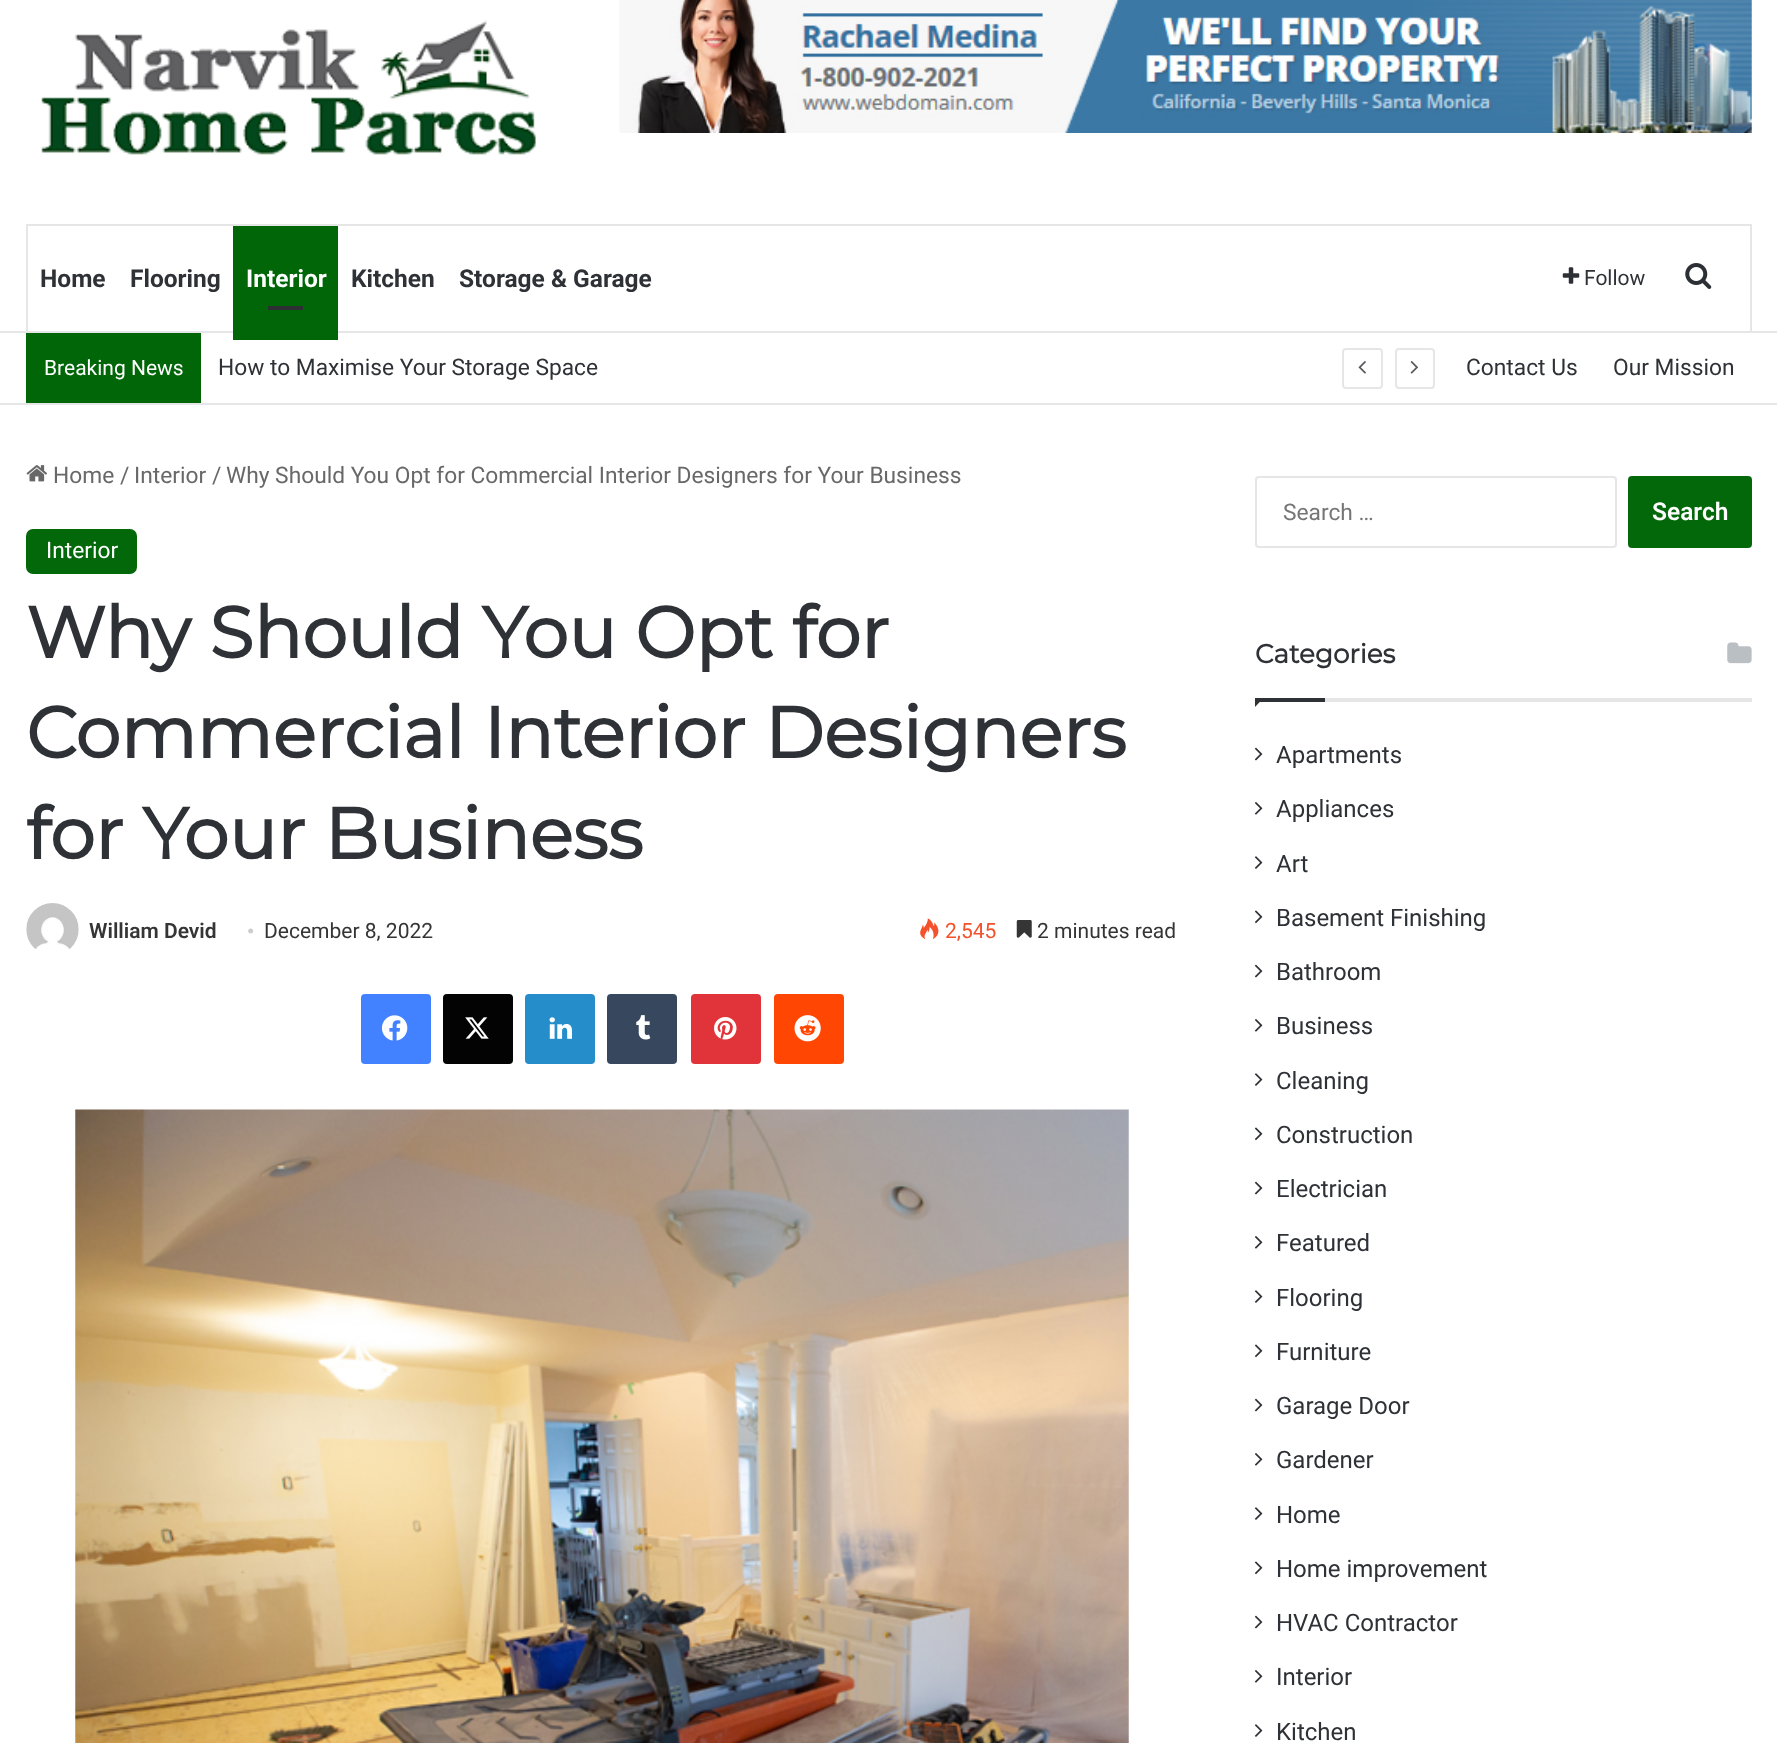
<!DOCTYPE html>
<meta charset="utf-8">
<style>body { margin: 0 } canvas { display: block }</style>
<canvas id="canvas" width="1777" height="1743"></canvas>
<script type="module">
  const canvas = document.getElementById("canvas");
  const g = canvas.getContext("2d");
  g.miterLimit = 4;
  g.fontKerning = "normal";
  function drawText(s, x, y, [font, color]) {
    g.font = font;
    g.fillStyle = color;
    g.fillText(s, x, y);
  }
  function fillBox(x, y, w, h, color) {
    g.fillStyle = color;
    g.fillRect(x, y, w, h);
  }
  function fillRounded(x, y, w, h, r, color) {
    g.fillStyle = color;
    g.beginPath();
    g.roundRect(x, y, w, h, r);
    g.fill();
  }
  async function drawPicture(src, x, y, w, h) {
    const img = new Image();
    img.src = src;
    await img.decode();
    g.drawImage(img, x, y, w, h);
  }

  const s1 = ["bold 24.5px Roboto", "#2E3136"];
  const s2 = ["bold 24.5px Roboto", "#FFFFFF"];
  const s3 = ["21px Roboto", "#2E3136"];
  const s4 = ["21px Roboto", "#FFFFFF"];
  const s5 = ["22.75px Roboto", "#2E3136"];
  const s6 = ["22.75px Roboto", "#686868"];
  const s7 = ["22.75px Roboto", "#FFFFFF"];
  const s8 = ["bold 71.75px Montserrat", "#2E3136"];
  const s9 = ["600 21px Roboto", "#353535"];
  const s10 = ["21px Liberation Serif", "#CDCDCD"];
  const s11 = ["21px Roboto", "#353535"];
  const s12 = ["21px Roboto", "#F3522C"];
  const s13 = ["22.75px Roboto", "#767676"];
  const s14 = ["600 24.5px Roboto", "#FFFFFF"];
  const s15 = ["bold 26.25px Montserrat", "#2E3136"];
  const s16 = ["24px Roboto", "#2E3136"];

  fillBox(0, 0, 1777, 1743, "#FFFFFF");
  await drawPicture("pic1.png", 41, 20, 495, 135);
  await drawPicture("pic2.png", 619, 0, 1133, 133);
  fillBox(0, 331, 1777, 2, "#E6E6E6");
  g.strokeStyle = "#E6E6E6";
  g.lineWidth = 2;
  g.strokeRect(27, 225, 1724, 107);
  drawText("Home", 40, 287, s1);
  drawText("Flooring", 130, 287, s1);
  fillBox(233, 226, 105, 114, "#006608");
  drawText("Interior", 246, 287, s2);
  fillBox(268, 306, 35, 4, "#2C2F34");
  drawText("Kitchen", 351, 287, s1);
  drawText("Storage & Garage", 459, 287, s1);
  await drawPicture("pic3.png", 1562, 267, 18, 17);
  drawText("Follow", 1584, 285, s3);
  await drawPicture("pic4.png", 1685, 263, 27, 26);
  fillBox(0, 403, 1777, 2, "#E6E6E6");
  fillBox(26, 333, 175, 70, "#006608");
  drawText("Breaking News", 44, 375, s4);
  drawText("How to Maximise Your Storage Space", 218, 375, s5);
  g.beginPath();
  g.roundRect(1343, 349, 39, 39, 3);
  g.stroke();
  await drawPicture("pic5.png", 1358, 361, 8, 13);
  g.beginPath();
  g.roundRect(1396, 349, 38, 39, 3);
  g.stroke();
  await drawPicture("pic6.png", 1410, 361, 8, 13);
  drawText("Contact Us", 1466, 375, s5);
  drawText("Our Mission", 1613, 375, s5);
  await drawPicture("pic7.png", 26, 465, 21, 17);
  drawText("Home", 53, 483, s6);
  drawText("/", 120, 483, s6);
  drawText("Interior", 134, 483, s6);
  drawText("/", 212, 483, s6);
  drawText("Why Should You Opt for Commercial Interior Designers for Your Business", 226, 483, s6);
  fillRounded(26, 529, 111, 45, 7, "#03680A");
  drawText("Interior", 46, 558, s7);
  drawText("Why Should You Opt for", 26, 658, s8);
  drawText("Commercial Interior Designers", 26, 758, s8);
  drawText("for Your Business", 26, 859, s8);
  await drawPicture("pic8.png", 26, 903, 53, 46);
  drawText("William Devid", 89, 938, s9);
  drawText("•", 247, 938, s10);
  drawText("December 8, 2022", 264, 938, s11);
  await drawPicture("pic9.png", 920, 918, 19, 22);
  drawText("2,545", 945, 938, s12);
  await drawPicture("pic10.png", 1016, 920, 16, 18);
  drawText("2 minutes read", 1037, 938, s11);
  fillRounded(361, 994, 70, 70, 4, "#4281FF");
  await drawPicture("pic11.png", 381, 1015, 27, 26);
  fillRounded(443, 994, 70, 70, 4, "#030303");
  await drawPicture("pic12.png", 465, 1017, 24, 22);
  fillRounded(525, 994, 70, 70, 4, "#258DC9");
  await drawPicture("pic13.png", 549, 1017, 23, 22);
  fillRounded(607, 994, 70, 70, 4, "#37485E");
  await drawPicture("pic14.png", 636, 1015, 15, 25);
  fillRounded(691, 994, 70, 70, 4, "#E1333A");
  await drawPicture("pic15.png", 714, 1017, 23, 23);
  fillRounded(774, 994, 70, 70, 4, "#FF4703");
  await drawPicture("pic16.png", 794, 1015, 27, 27);
  await drawPicture("pic17.png", 75, 1109, 1054, 634);
  g.beginPath();
  g.roundRect(1256, 477, 360, 70, 3);
  g.stroke();
  drawText("Search …", 1283, 520, s13);
  fillRounded(1628, 476, 124, 72, 4, "#03680A");
  drawText("Search", 1652, 520, s14);
  fillBox(1325, 698, 427, 4, "#E6E6E6");
  drawText("Categories", 1255, 663, s15);
  await drawPicture("pic18.png", 1727, 642, 25, 22);
  g.beginPath();
  g.moveTo(1255, 698);
  g.lineTo(1263.5, 698);
  g.lineTo(1255, 707);
  g.closePath();
  g.fill();
  fillBox(1255, 698, 70, 4, "#2E3136");
  await drawPicture("pic19.png", 1254, 747, 9, 14);
  drawText("Apartments", 1276, 763, s16);
  await drawPicture("pic20.png", 1254, 802, 9, 13);
  drawText("Appliances", 1276, 817, s16);
  await drawPicture("pic21.png", 1254, 856, 9, 13);
  drawText("Art", 1276, 872, s16);
  await drawPicture("pic22.png", 1254, 910, 9, 14);
  drawText("Basement Finishing", 1276, 926, s16);
  await drawPicture("pic19.png", 1254, 964, 9, 14);
  drawText("Bathroom", 1276, 980, s16);
  await drawPicture("pic20.png", 1254, 1019, 9, 13);
  drawText("Business", 1276, 1034, s16);
  await drawPicture("pic21.png", 1254, 1073, 9, 13);
  drawText("Cleaning", 1276, 1089, s16);
  await drawPicture("pic22.png", 1254, 1127, 9, 14);
  drawText("Construction", 1276, 1143, s16);
  await drawPicture("pic19.png", 1254, 1181, 9, 14);
  drawText("Electrician", 1276, 1197, s16);
  await drawPicture("pic20.png", 1254, 1236, 9, 13);
  drawText("Featured", 1276, 1251, s16);
  await drawPicture("pic21.png", 1254, 1290, 9, 13);
  drawText("Flooring", 1276, 1306, s16);
  await drawPicture("pic22.png", 1254, 1344, 9, 14);
  drawText("Furniture", 1276, 1360, s16);
  await drawPicture("pic19.png", 1254, 1398, 9, 14);
  drawText("Garage Door", 1276, 1414, s16);
  await drawPicture("pic20.png", 1254, 1453, 9, 13);
  drawText("Gardener", 1276, 1468, s16);
  await drawPicture("pic21.png", 1254, 1507, 9, 13);
  drawText("Home", 1276, 1523, s16);
  await drawPicture("pic22.png", 1254, 1561, 9, 14);
  drawText("Home improvement", 1276, 1577, s16);
  await drawPicture("pic19.png", 1254, 1615, 9, 14);
  drawText("HVAC Contractor", 1276, 1631, s16);
  await drawPicture("pic20.png", 1254, 1670, 9, 13);
  drawText("Interior", 1276, 1685, s16);
  await drawPicture("pic21.png", 1254, 1724, 9, 13);
  drawText("Kitchen", 1276, 1740, s16);
</script>
